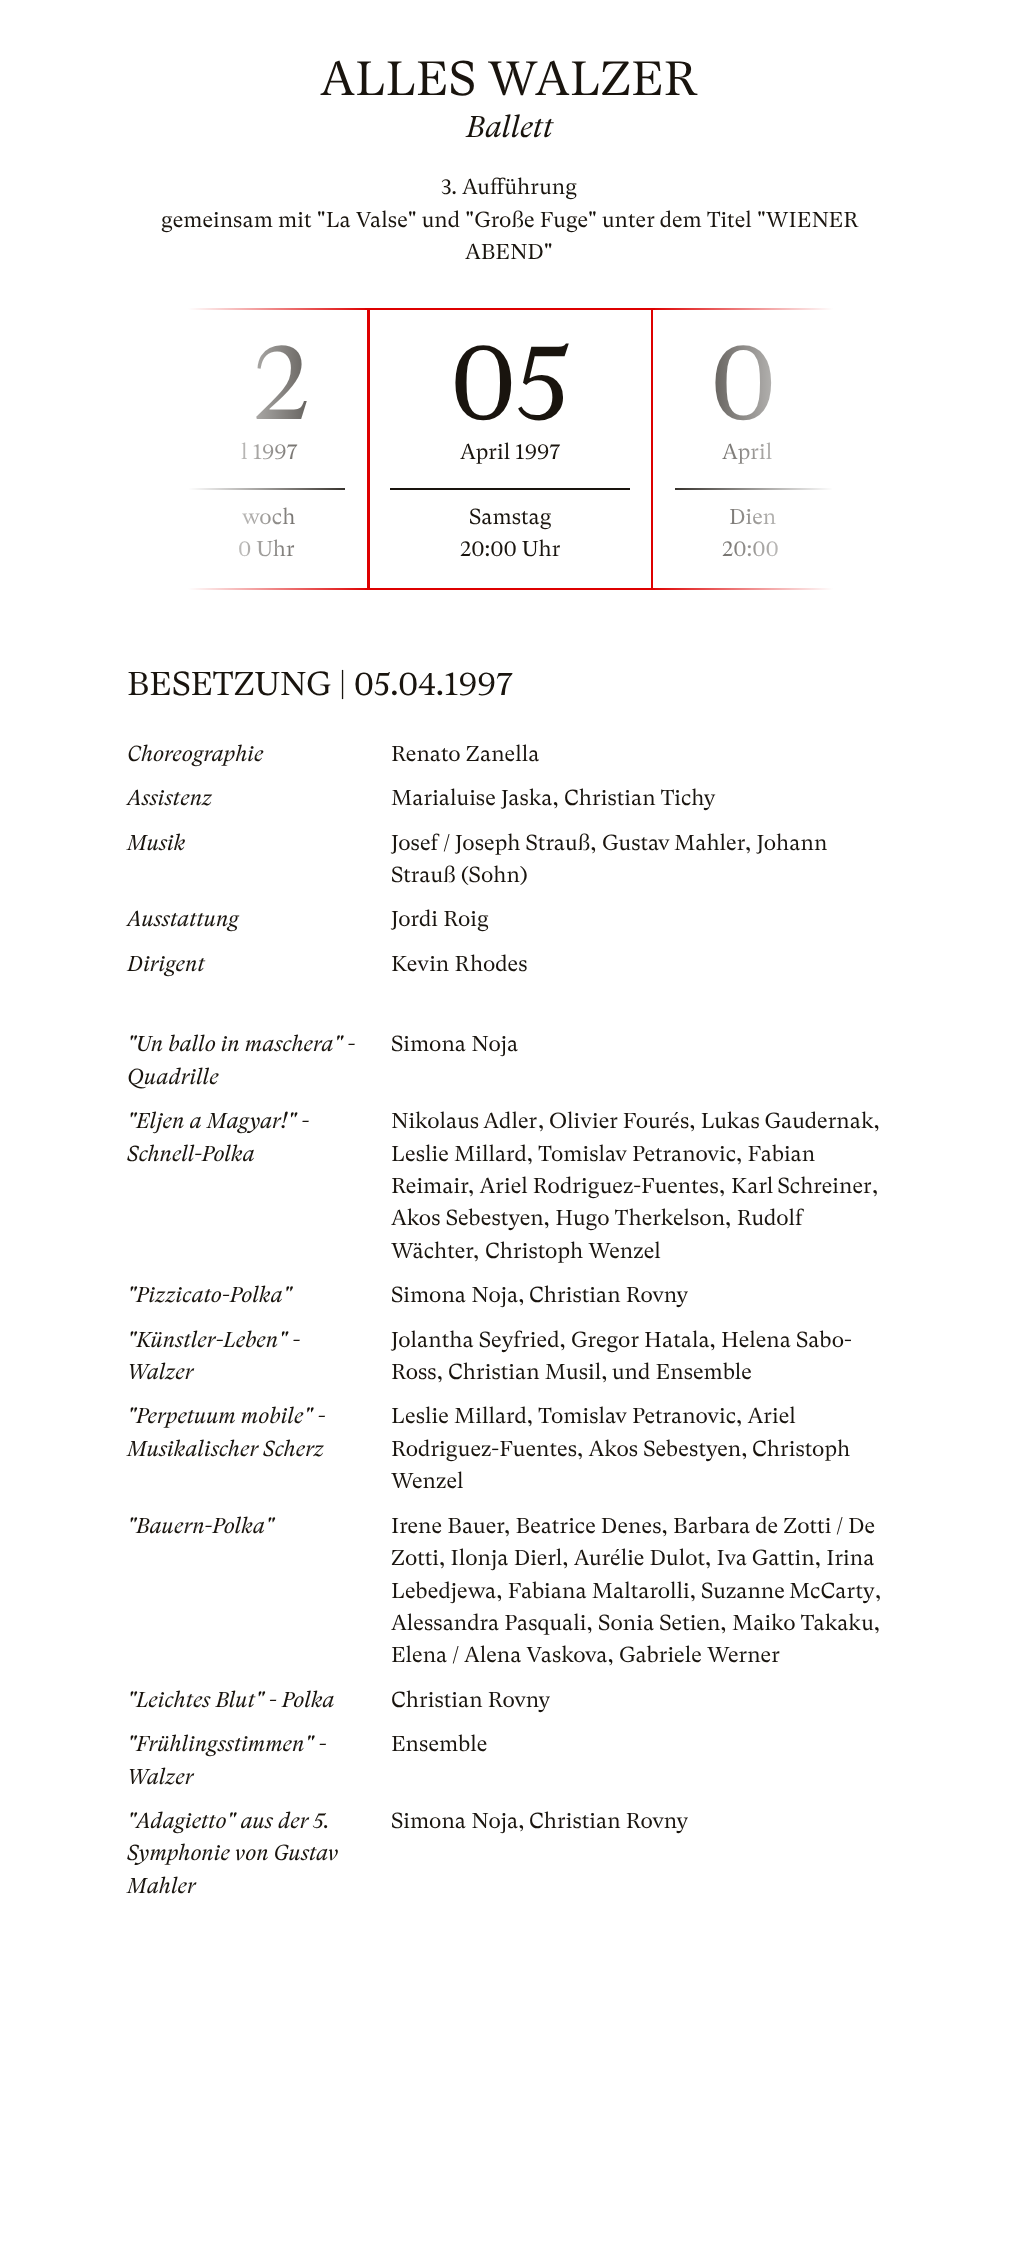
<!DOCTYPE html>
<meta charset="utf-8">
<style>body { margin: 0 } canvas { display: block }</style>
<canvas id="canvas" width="1018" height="2258"></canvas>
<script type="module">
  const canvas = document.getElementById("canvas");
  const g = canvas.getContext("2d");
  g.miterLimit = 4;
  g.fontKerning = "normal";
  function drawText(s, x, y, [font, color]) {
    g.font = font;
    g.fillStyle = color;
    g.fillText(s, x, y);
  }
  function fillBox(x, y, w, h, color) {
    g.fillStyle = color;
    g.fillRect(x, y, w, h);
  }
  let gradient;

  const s1 = ["48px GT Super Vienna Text", "#19140E"];
  const s2 = ["italic 30px GT Super Vienna Text", "#19140E"];
  const s3 = ["21.6px GT Super Vienna Text", "#19140E"];
  const s4 = ["108px GT Super Vienna Text", "#19140E"];
  const s5 = ["33px GT Super Vienna Text", "#19140E"];
  const s6 = ["italic 21.6px GT Super Vienna Text", "#19140E"];

  fillBox(0, 0, 1018, 2258, "#FFFFFF");
  drawText("ALLES WALZER", 320, 95, s1);
  drawText("Ballett", 466, 137, s2);
  drawText("3. Aufführung", 441, 194, s3);
  drawText("gemeinsam mit \"La Valse\" und \"Große Fuge\" unter dem Titel \"WIENER", 161, 227, s3);
  drawText("ABEND\"", 465, 259, s3);
  g.strokeStyle = "#DE0000";
  g.lineWidth = 2;
  g.strokeRect(129, 309, 239, 280);
  drawText("2", 253, 419, s4);
  fillBox(189, 488, 156, 2, "#19140E");
  drawText("l 1997", 241, 459, s3);
  drawText("woch", 242, 524, s3);
  drawText("0 Uhr", 238, 556, s3);
  gradient = g.createLinearGradient(128, 449, 369, 449);
  gradient.addColorStop(0.25, "#FFFFFF");
  gradient.addColorStop(1, "rgba(255, 255, 255, 0)");
  g.fillStyle = gradient;
  g.fillRect(128, 308, 237, 282);
  g.strokeRect(369, 309, 283, 280);
  drawText("05", 450, 419, s4);
  fillBox(390, 488, 240, 2, "#19140E");
  drawText("April 1997", 460, 459, s3);
  drawText("Samstag", 469, 524, s3);
  drawText("20:00 Uhr", 460, 556, s3);
  g.strokeRect(652, 309, 241, 280);
  drawText("0", 710, 419, s4);
  fillBox(675, 488, 157, 2, "#19140E");
  drawText("April", 722, 459, s3);
  drawText("Dien", 729, 524, s3);
  drawText("20:00", 722, 556, s3);
  gradient = g.createLinearGradient(894, 449, 651, 449);
  gradient.addColorStop(0.25, "#FFFFFF");
  gradient.addColorStop(1, "rgba(255, 255, 255, 0)");
  g.fillStyle = gradient;
  g.fillRect(655, 308, 239, 282);
  drawText("BESETZUNG | 05.04.1997", 127, 695, s5);
  drawText("Choreographie", 127, 761, s6);
  drawText("Renato Zanella", 391, 761, s3);
  drawText("Assistenz", 127, 805, s6);
  drawText("Marialuise Jaska,", 391, 805, s3);
  drawText("Christian Tichy", 564, 805, s3);
  drawText("Musik", 127, 850, s6);
  drawText("Josef / Joseph Strauß,", 391, 850, s3);
  g.wordSpacing = "-1px";
  drawText("Gustav Mahler", 602, 850, s3);
  g.wordSpacing = "0px";
  drawText(", Johann", 745, 850, s3);
  drawText("Strauß (Sohn)", 391, 882, s3);
  drawText("Ausstattung", 127, 926, s6);
  drawText("Jordi Roig", 391, 926, s3);
  drawText("Dirigent", 127, 971, s6);
  drawText("Kevin Rhodes", 391, 971, s3);
  drawText("\"Un ballo in maschera\" -", 127, 1051, s6);
  drawText("Quadrille", 127, 1084, s6);
  drawText("Simona Noja", 391, 1051, s3);
  drawText("\"Eljen a Magyar!\" -", 127, 1128, s6);
  drawText("Schnell-Polka", 127, 1161, s6);
  g.wordSpacing = "-1px";
  drawText("Nikolaus Adler", 391, 1128, s3);
  g.wordSpacing = "0px";
  drawText(",", 538, 1128, s3);
  drawText("Olivier Fourés, Lukas Gaudernak,", 549, 1128, s3);
  drawText("Leslie Millard, Tomislav Petranovic, Fabian", 391, 1161, s3);
  drawText("Reimair", 391, 1193, s3);
  drawText(", Ariel Rodriguez-Fuentes,", 468, 1193, s3);
  g.wordSpacing = "-1px";
  drawText("Karl Schreiner", 731, 1193, s3);
  g.wordSpacing = "0px";
  drawText(",", 872, 1193, s3);
  drawText("Akos Sebestyen, Hugo Therkelson, Rudolf", 391, 1225, s3);
  drawText("Wächter", 391, 1258, s3);
  drawText(",", 473, 1258, s3);
  drawText("Christoph Wenzel", 485, 1258, s3);
  drawText("\"Pizzicato-Polka\"", 127, 1302, s6);
  drawText("Simona Noja,", 391, 1302, s3);
  drawText("Christian Rovny", 529, 1302, s3);
  drawText("\"Künstler-Leben\" -", 127, 1347, s6);
  drawText("Walzer", 127, 1379, s6);
  drawText("Jolantha Seyfried,", 391, 1347, s3);
  drawText("Gregor Hatala, Helena Sabo-", 571, 1347, s3);
  drawText("Ross,", 391, 1379, s3);
  drawText("Christian Musil,", 448, 1379, s3);
  drawText("und Ensemble", 612, 1379, s3);
  drawText("\"Perpetuum mobile\" -", 127, 1423, s6);
  drawText("Musikalischer Scherz", 127, 1456, s6);
  drawText("Leslie Millard, Tomislav Petranovic, Ariel", 391, 1423, s3);
  drawText("Rodriguez-Fuentes, Akos Sebestyen,", 391, 1456, s3);
  drawText("Christoph", 752, 1456, s3);
  drawText("Wenzel", 391, 1488, s3);
  drawText("\"Bauern-Polka\"", 127, 1533, s6);
  drawText("Irene Bauer", 391, 1533, s3);
  drawText(", Beatrice Denes, Barbara de Zotti / De", 504, 1533, s3);
  drawText("Zotti, Ilonja Dierl, Aurélie Dulot, Iva Gattin, Irina", 391, 1565, s3);
  drawText("Lebedjewa, Fabiana Maltarolli,", 391, 1598, s3);
  g.wordSpacing = "-1px";
  drawText("Suzanne McCarty", 701, 1598, s3);
  g.wordSpacing = "0px";
  drawText(",", 875, 1598, s3);
  drawText("Alessandra Pasquali, Sonia Setien, Maiko Takaku,", 391, 1630, s3);
  drawText("Elena / Alena Vaskova,", 391, 1662, s3);
  drawText("Gabriele Werner", 619, 1662, s3);
  drawText("\"Leichtes Blut\" - Polka", 127, 1707, s6);
  drawText("Christian Rovny", 391, 1707, s3);
  drawText("\"Frühlingsstimmen\" -", 127, 1751, s6);
  drawText("Walzer", 127, 1784, s6);
  drawText("Ensemble", 391, 1751, s3);
  drawText("\"Adagietto\" aus der 5.", 127, 1828, s6);
  drawText("Symphonie von Gustav", 127, 1860, s6);
  drawText("Mahler", 127, 1893, s6);
  drawText("Simona Noja,", 391, 1828, s3);
  drawText("Christian Rovny", 529, 1828, s3);
</script>
